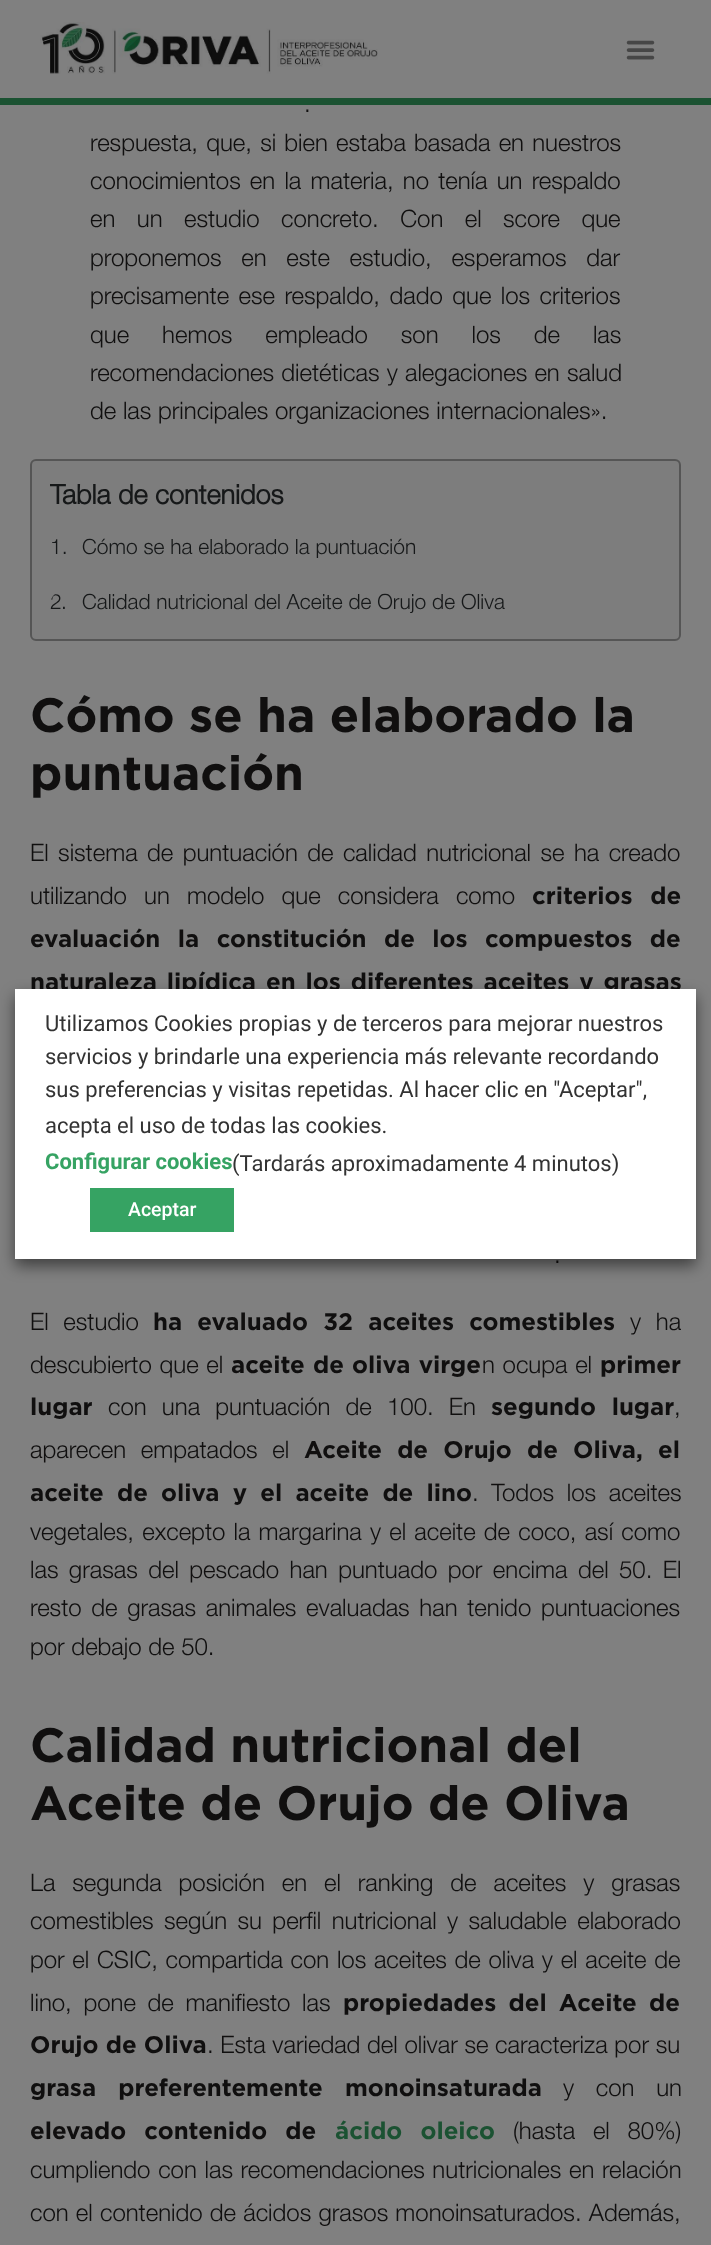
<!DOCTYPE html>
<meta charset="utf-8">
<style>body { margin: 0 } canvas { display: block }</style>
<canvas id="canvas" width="711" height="2245"></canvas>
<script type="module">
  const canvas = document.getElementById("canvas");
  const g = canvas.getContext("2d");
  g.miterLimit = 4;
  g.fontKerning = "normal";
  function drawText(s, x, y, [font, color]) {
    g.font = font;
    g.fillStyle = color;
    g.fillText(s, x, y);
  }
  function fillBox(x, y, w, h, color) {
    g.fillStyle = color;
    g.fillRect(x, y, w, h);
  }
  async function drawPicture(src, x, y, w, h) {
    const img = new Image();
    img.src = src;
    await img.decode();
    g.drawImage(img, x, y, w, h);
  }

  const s1 = ["300 24px Helvetica Neue", "#100F0F"];
  const s2 = ["bold 27px Helvetica Neue", "#161819"];
  const s3 = ["300 21px Helvetica Neue", "#161819"];
  const s4 = ["bold 48px Gotham", "#100F0F"];
  const s5 = ["bold 24px Gotham", "#100F0F"];
  const s6 = ["bold 24px Gotham", "#1B5232"];
  const s7 = ["22px Roboto", "#333333"];
  const s8 = ["bold 22px Roboto", "#36A363"];
  const s9 = ["500 19.5px Roboto", "#FFFFFF"];

  fillBox(0, 0, 711, 2245, "#808080");
  g.strokeStyle = "#1B5232";
  g.lineWidth = 8;
  g.strokeRect(-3, -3, 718, 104);
  fillBox(0, 0, 711, 98, "#808080");
  await drawPicture("pic1.png", 40, 22, 338, 52);
  await drawPicture("pic2.png", 626, 40, 29, 20);
  g.wordSpacing = "11px";
  drawText(".", 304, 112, s1);
  g.wordSpacing = "1.5px";
  drawText("respuesta, que, si bien estaba basada en nuestros", 90, 151, s1);
  g.wordSpacing = "2.5px";
  drawText("conocimientos en la materia, no tenía un respaldo", 90, 189, s1);
  g.wordSpacing = "14.75px";
  drawText("en un estudio concreto. Con el score que", 90, 227, s1);
  g.wordSpacing = "13px";
  drawText("proponemos en este estudio, esperamos dar", 90, 266, s1);
  g.wordSpacing = "2.75px";
  drawText("precisamente ese respaldo, dado que los criterios", 90, 304, s1);
  g.wordSpacing = "26.25px";
  drawText("que hemos empleado son los de las", 90, 343, s1);
  g.wordSpacing = "0.5px";
  drawText("recomendaciones dietéticas y alegaciones en salud", 90, 381, s1);
  g.wordSpacing = "0px";
  drawText("de las principales organizaciones internacionales».", 90, 419, s1);
  g.fillStyle = "#7D7D7D";
  g.beginPath();
  g.roundRect(31, 460, 649, 180, 5);
  g.fill();
  g.strokeStyle = "#555555";
  g.lineWidth = 2;
  g.stroke();
  g.save();
  g.beginPath();
  g.rect(50, 479, 612, 142);
  g.clip();
  drawText("Tabla de contenidos", 50, 504, s2);
  g.restore();
  drawText("1.", 50, 554, s3);
  drawText("Cómo se ha elaborado la puntuación", 82, 554, s3);
  g.save();
  g.beginPath();
  g.roundRect(50, 590, 612, 31, 15);
  g.clip();
  drawText("2", 50, 609, s3);
  g.restore();
  drawText(".", 61, 609, s3);
  drawText("Calidad nutricional del Aceite de Orujo de Oliva", 82, 609, s3);
  drawText("Cómo se ha elaborado la", 30, 732, s4);
  drawText("puntuación", 30, 790, s4);
  g.wordSpacing = "2.75px";
  drawText("El sistema de puntuación de calidad nutricional se ha creado", 30, 861, s1);
  g.wordSpacing = "10.5px";
  drawText("utilizando un modelo que considera como", 30, 904, s1);
  drawText("criterios de", 532, 904, s5);
  g.wordSpacing = "10.25px";
  drawText("evaluación la constitución de los compuestos de", 30, 947, s5);
  g.wordSpacing = "2.75px";
  drawText("naturaleza lipídica en los diferentes aceites y grasas", 30, 990, s5);
  g.wordSpacing = "0px";
  drawText(".", 554, 1263, s1);
  g.wordSpacing = "8px";
  drawText("El estudio", 30, 1330, s1);
  drawText("ha evaluado 32 aceites comestibles", 153, 1330, s5);
  drawText("y ha", 630, 1330, s1);
  g.wordSpacing = "1px";
  drawText("descubierto que el", 30, 1373, s1);
  drawText("aceite de oliva virge", 231, 1373, s5);
  drawText("n ocupa el", 482, 1373, s1);
  g.wordSpacing = "0px";
  drawText("primer", 600, 1373, s5);
  drawText("lugar", 30, 1415, s5);
  g.wordSpacing = "8.5px";
  drawText("con una puntuación de 100. En", 108, 1415, s1);
  drawText("segundo lugar", 491, 1415, s5);
  g.wordSpacing = "0px";
  drawText(",", 674, 1415, s1);
  g.wordSpacing = "8px";
  drawText("aparecen empatados el", 30, 1458, s1);
  drawText("Aceite de Orujo de Oliva, el", 304, 1458, s5);
  g.wordSpacing = "6px";
  drawText("aceite de oliva y el aceite de lino", 30, 1501, s5);
  drawText(". Todos los aceites", 472, 1501, s1);
  g.wordSpacing = "1.5px";
  drawText("vegetales, excepto la margarina y el aceite de coco, así como", 30, 1540, s1);
  g.wordSpacing = "3.75px";
  drawText("las grasas del pescado han puntuado por encima del 50. El", 30, 1578, s1);
  g.wordSpacing = "3px";
  drawText("resto de grasas animales evaluadas han tenido puntuaciones", 30, 1616, s1);
  g.wordSpacing = "0px";
  drawText("por debajo de 50.", 30, 1655, s1);
  drawText("Calidad nutricional del", 30, 1762, s4);
  drawText("Aceite de Orujo de Oliva", 30, 1820, s4);
  g.wordSpacing = "10.25px";
  drawText("La segunda posición en el ranking de aceites y grasas", 30, 1891, s1);
  g.wordSpacing = "3.75px";
  drawText("comestibles según su perfil nutricional y saludable elaborado", 30, 1929, s1);
  g.wordSpacing = "1px";
  drawText("por el CSIC, compartida con los aceites de oliva y el aceite de", 30, 1968, s1);
  g.wordSpacing = "5px";
  drawText("lino, pone de manifiesto las", 30, 2011, s1);
  drawText("propiedades del Aceite de", 343, 2011, s5);
  g.wordSpacing = "0px";
  drawText("Orujo de Oliva", 30, 2053, s5);
  drawText(". Esta variedad del olivar se caracteriza por su", 207, 2053, s1);
  g.wordSpacing = "15px";
  drawText("grasa preferentemente monoinsaturada", 30, 2096, s5);
  drawText("y con un", 563, 2096, s1);
  g.wordSpacing = "11px";
  drawText("elevado contenido de", 30, 2139, s5);
  drawText("ácido oleico", 335, 2139, s6);
  drawText("(hasta el 80%)", 513, 2139, s1);
  g.wordSpacing = "1px";
  drawText("cumpliendo con las recomendaciones nutricionales en relación", 30, 2178, s1);
  g.wordSpacing = "0.5px";
  drawText("con el contenido de ácidos grasos monoinsaturados. Además,", 30, 2221, s1);
  g.fillStyle = "rgba(0, 0, 0, 0.5)";
  g.filter = "blur(7.5px)";
  g.beginPath();
  g.rect(15, 996, 681, 270);
  g.fill();
  g.filter = "none";
  fillBox(15, 989, 681, 270, "#FFFFFF");
  g.wordSpacing = "0px";
  drawText("Utilizamos Cookies propias y de terceros para mejorar nuestros", 45, 1031, s7);
  drawText("servicios y brindarle una experiencia más relevante recordando", 45, 1064, s7);
  drawText("sus preferencias y visitas repetidas. Al hacer clic en \"Aceptar\",", 45, 1097, s7);
  drawText("acepta el uso de todas las cookies.", 45, 1133, s7);
  drawText("Configurar cookies", 45, 1169, s8);
  drawText("(Tardarás aproximadamente 4 minutos)", 232, 1171, s7);
  fillBox(90, 1188, 144, 44, "#36A363");
  drawText("Aceptar", 128, 1216, s9);
</script>
